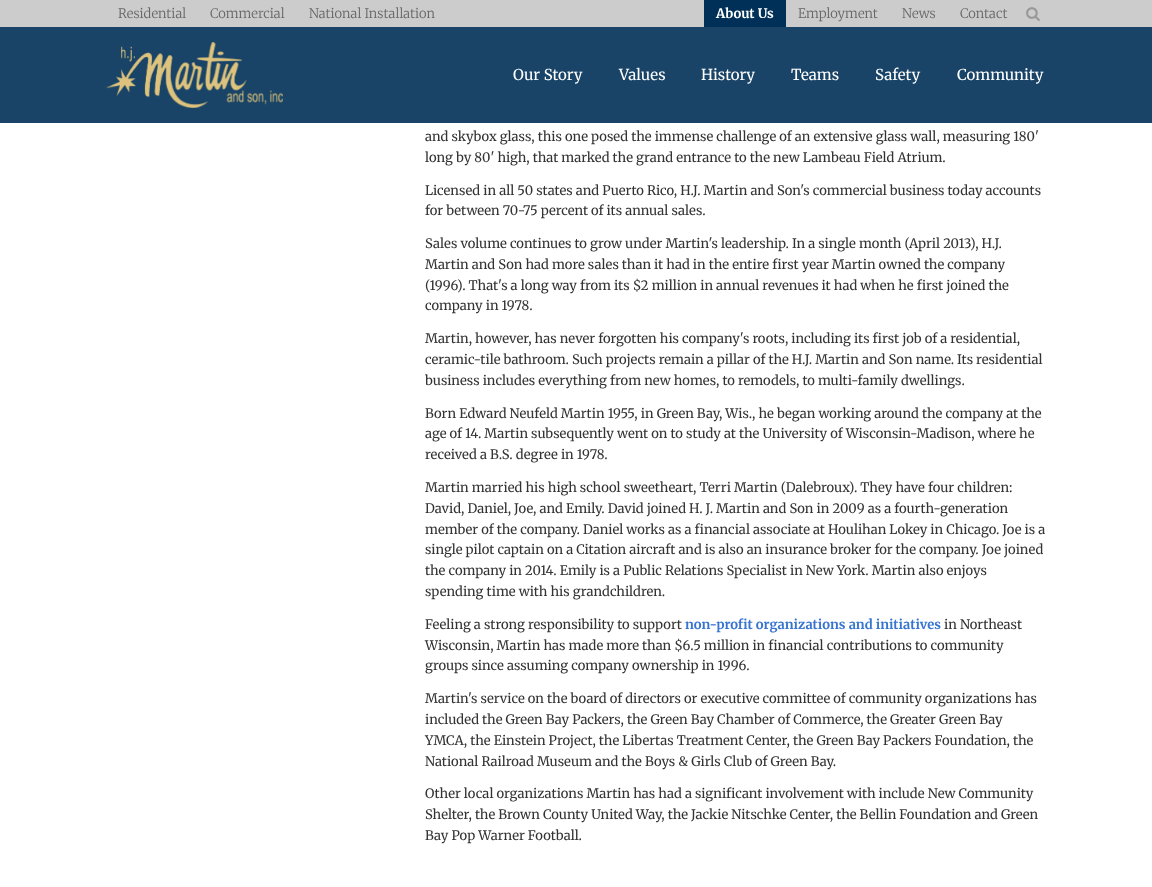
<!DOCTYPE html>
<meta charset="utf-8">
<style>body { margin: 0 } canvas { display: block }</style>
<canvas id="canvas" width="1152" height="887"></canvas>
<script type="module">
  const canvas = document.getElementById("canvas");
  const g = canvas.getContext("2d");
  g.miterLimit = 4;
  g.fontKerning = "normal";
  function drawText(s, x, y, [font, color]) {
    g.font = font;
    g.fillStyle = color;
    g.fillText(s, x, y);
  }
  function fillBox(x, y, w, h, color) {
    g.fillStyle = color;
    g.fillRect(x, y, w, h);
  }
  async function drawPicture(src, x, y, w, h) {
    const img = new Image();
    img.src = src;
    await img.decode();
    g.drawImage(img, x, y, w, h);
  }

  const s1 = ["300 13px Merriweather", "#666666"];
  const s2 = ["bold 13px Merriweather", "#FFFFFF"];
  const s3 = ["15px Merriweather", "#FFFFFF"];
  const s4 = ["13px Merriweather", "#333333"];
  const s5 = ["bold 13px Merriweather", "#3875D0"];

  fillBox(0, 0, 1152, 887, "#FFFFFF");
  fillBox(0, 0, 1152, 27, "#CCCCCC");
  drawText("Residential", 118, 18, s1);
  drawText("Commercial", 210, 18, s1);
  drawText("National Installation", 309, 18, s1);
  fillBox(704, 0, 82, 27, "#003057");
  drawText("About Us", 716, 18, s2);
  drawText("Employment", 798, 18, s1);
  drawText("News", 902, 18, s1);
  drawText("Contact", 960, 18, s1);
  await drawPicture("pic1.png", 1026, 7, 14, 14);
  fillBox(0, 27, 1152, 96, "rgba(0, 48, 87, 0.9)");
  await drawPicture("pic2.png", 106, 42, 177, 66);
  drawText("Our Story", 513, 80, s3);
  drawText("Values", 619, 80, s3);
  drawText("History", 701, 80, s3);
  drawText("Teams", 791, 80, s3);
  drawText("Safety", 875, 80, s3);
  drawText("Community", 957, 80, s3);
  drawText("and skybox glass, this one posed the immense challenge of an extensive glass wall, measuring 180'", 425, 141, s4);
  drawText("long by 80' high, that marked the grand entrance to the new Lambeau Field Atrium.", 425, 162, s4);
  drawText("Licensed in all 50 states and Puerto Rico, H.J. Martin and Son's commercial business today accounts", 425, 195, s4);
  drawText("for between 70-75 percent of its annual sales.", 425, 215, s4);
  drawText("Sales volume continues to grow under Martin's leadership. In a single month (April 2013), H.J.", 425, 248, s4);
  drawText("Martin and Son had more sales than it had in the entire first year Martin owned the company", 425, 269, s4);
  drawText("(1996). That's a long way from its $2 million in annual revenues it had when he first joined the", 425, 290, s4);
  drawText("company in 1978.", 425, 310, s4);
  drawText("Martin, however, has never forgotten his company's roots, including its first job of a residential,", 425, 343, s4);
  drawText("ceramic-tile bathroom. Such projects remain a pillar of the H.J. Martin and Son name. Its residential", 425, 364, s4);
  drawText("business includes everything from new homes, to remodels, to multi-family dwellings.", 425, 385, s4);
  drawText("Born Edward Neufeld Martin 1955, in Green Bay, Wis., he began working around the company at the", 425, 418, s4);
  drawText("age of 14. Martin subsequently went on to study at the University of Wisconsin-Madison, where he", 425, 438, s4);
  drawText("received a B.S. degree in 1978.", 425, 459, s4);
  drawText("Martin married his high school sweetheart, Terri Martin (Dalebroux). They have four children:", 425, 492, s4);
  drawText("David, Daniel, Joe, and Emily. David joined H. J. Martin and Son in 2009 as a fourth-generation", 425, 513, s4);
  drawText("member of the company. Daniel works as a financial associate at Houlihan Lokey in Chicago. Joe is a", 425, 534, s4);
  drawText("single pilot captain on a Citation aircraft and is also an insurance broker for the company. Joe joined", 425, 554, s4);
  drawText("the company in 2014. Emily is a Public Relations Specialist in New York. Martin also enjoys", 425, 575, s4);
  drawText("spending time with his grandchildren.", 425, 596, s4);
  drawText("Feeling a strong responsibility to support", 425, 629, s4);
  drawText("non-profit organizations and initiatives", 685, 629, s5);
  drawText("in Northeast", 944, 629, s4);
  drawText("Wisconsin, Martin has made more than $6.5 million in financial contributions to community", 425, 650, s4);
  drawText("groups since assuming company ownership in 1996.", 425, 670, s4);
  drawText("Martin's service on the board of directors or executive committee of community organizations has", 425, 703, s4);
  drawText("included the Green Bay Packers, the Green Bay Chamber of Commerce, the Greater Green Bay", 425, 724, s4);
  drawText("YMCA, the Einstein Project, the Libertas Treatment Center, the Green Bay Packers Foundation, the", 425, 745, s4);
  drawText("National Railroad Museum and the Boys & Girls Club of Green Bay.", 425, 766, s4);
  drawText("Other local organizations Martin has had a significant involvement with include New Community", 425, 798, s4);
  drawText("Shelter, the Brown County United Way, the Jackie Nitschke Center, the Bellin Foundation and Green", 425, 819, s4);
  drawText("Bay Pop Warner Football.", 425, 840, s4);
</script>
